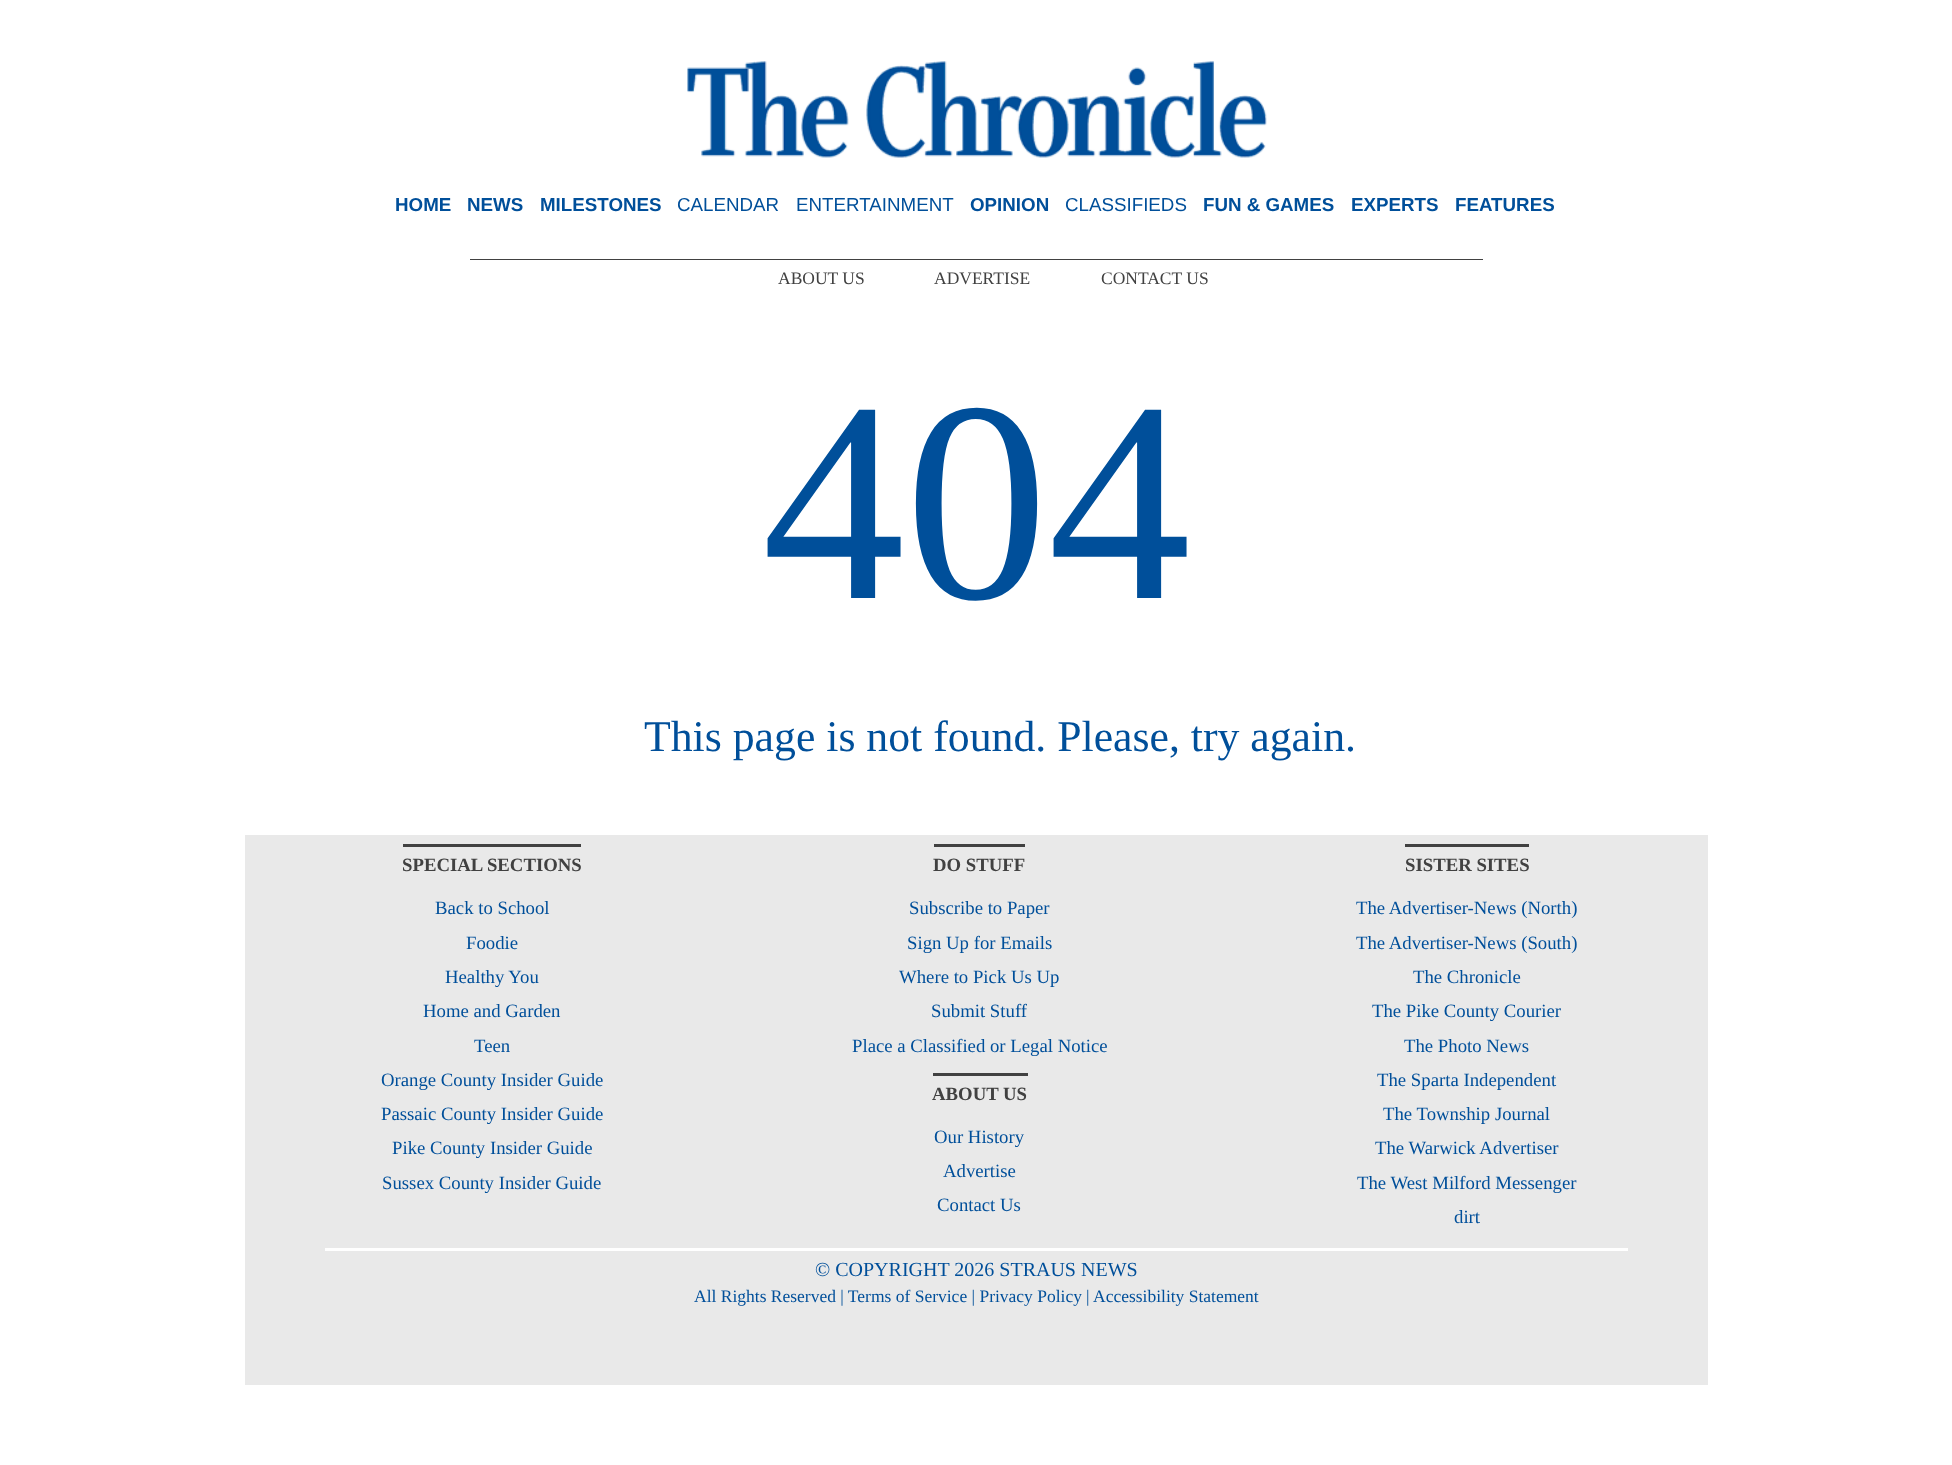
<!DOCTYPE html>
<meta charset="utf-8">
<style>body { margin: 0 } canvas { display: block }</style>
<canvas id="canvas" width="1952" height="1465"></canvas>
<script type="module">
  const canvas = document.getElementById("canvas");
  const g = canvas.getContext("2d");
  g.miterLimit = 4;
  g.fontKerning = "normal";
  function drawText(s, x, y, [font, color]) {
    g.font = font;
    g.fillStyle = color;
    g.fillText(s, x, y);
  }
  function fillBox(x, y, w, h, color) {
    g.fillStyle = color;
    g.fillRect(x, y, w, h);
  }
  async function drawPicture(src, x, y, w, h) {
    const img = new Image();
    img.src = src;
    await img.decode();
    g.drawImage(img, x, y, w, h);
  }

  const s1 = ["bold 18.75px Liberation Sans", "#004F9A"];
  const s2 = ["18.75px Liberation Sans", "#004F9A"];
  const s3 = ["17.5px Liberation Serif", "#414141"];
  const s4 = ["286px Liberation Serif", "#004F9A"];
  const s5 = ["43.75px Liberation Serif", "#004F9A"];
  const s6 = ["bold 18.75px Liberation Serif", "#414141"];
  const s7 = ["18.75px Liberation Serif", "#004F9A"];
  const s8 = ["20px Liberation Serif", "#004F9A"];
  const s9 = ["17.5px Liberation Serif", "#004F9A"];

  fillBox(0, 0, 1952, 1465, "#FFFFFF");
  await drawPicture("pic1.png", 687, 61, 580, 97);
  drawText("HOME", 395, 211, s1);
  drawText("NEWS", 467, 211, s1);
  drawText("MILESTONES", 540, 211, s1);
  drawText("CALENDAR", 677, 211, s2);
  drawText("ENTERTAINMENT", 796, 211, s2);
  drawText("OPINION", 970, 211, s1);
  drawText("CLASSIFIEDS", 1065, 211, s2);
  drawText("FUN & GAMES", 1203, 211, s1);
  drawText("EXPERTS", 1351, 211, s1);
  drawText("FEATURES", 1455, 211, s1);
  fillBox(470, 259, 1013, 1, "#414141");
  drawText("ABOUT US", 778, 284, s3);
  drawText("ADVERTISE", 934, 284, s3);
  drawText("CONTACT US", 1101, 284, s3);
  drawText("404", 762, 598, s4);
  drawText("This page is not found. Please, try again.", 644, 751, s5);
  fillBox(245, 835, 1463, 550, "#E9E9E9");
  fillBox(403, 844, 178, 3, "#414141");
  drawText("SPECIAL SECTIONS", 402, 871, s6);
  drawText("Back to School", 435, 914, s7);
  drawText("Foodie", 466, 949, s7);
  drawText("Healthy You", 445, 983, s7);
  drawText("Home and Garden", 423, 1017, s7);
  drawText("Teen", 474, 1052, s7);
  drawText("Orange County Insider Guide", 381, 1086, s7);
  drawText("Passaic County Insider Guide", 381, 1120, s7);
  drawText("Pike County Insider Guide", 392, 1154, s7);
  drawText("Sussex County Insider Guide", 382, 1189, s7);
  fillBox(934, 844, 91, 3, "#414141");
  drawText("DO STUFF", 933, 871, s6);
  drawText("Subscribe to Paper", 909, 914, s7);
  drawText("Sign Up for Emails", 907, 949, s7);
  drawText("Where to Pick Us Up", 899, 983, s7);
  drawText("Submit Stuff", 931, 1017, s7);
  drawText("Place a Classified or Legal Notice", 852, 1052, s7);
  fillBox(933, 1073, 95, 3, "#414141");
  drawText("ABOUT US", 932, 1100, s6);
  drawText("Our History", 934, 1143, s7);
  drawText("Advertise", 943, 1177, s7);
  drawText("Contact Us", 937, 1211, s7);
  fillBox(1405, 844, 124, 3, "#414141");
  drawText("SISTER SITES", 1405, 871, s6);
  drawText("The Advertiser-News (North)", 1356, 914, s7);
  drawText("The Advertiser-News (South)", 1356, 949, s7);
  drawText("The Chronicle", 1413, 983, s7);
  drawText("The Pike County Courier", 1372, 1017, s7);
  drawText("The Photo News", 1404, 1052, s7);
  drawText("The Sparta Independent", 1377, 1086, s7);
  drawText("The Township Journal", 1383, 1120, s7);
  drawText("The Warwick Advertiser", 1375, 1154, s7);
  drawText("The West Milford Messenger", 1357, 1189, s7);
  drawText("dirt", 1454, 1223, s7);
  fillBox(325, 1248, 1303, 3, "#FFFFFF");
  drawText("© COPYRIGHT 2026 STRAUS NEWS", 815, 1276, s8);
  drawText("All Rights Reserved | Terms of Service | Privacy Policy", 694, 1302, s9);
  drawText("|", 1086, 1302, s9);
  drawText("Accessibility Statement", 1093, 1302, s9);
</script>
